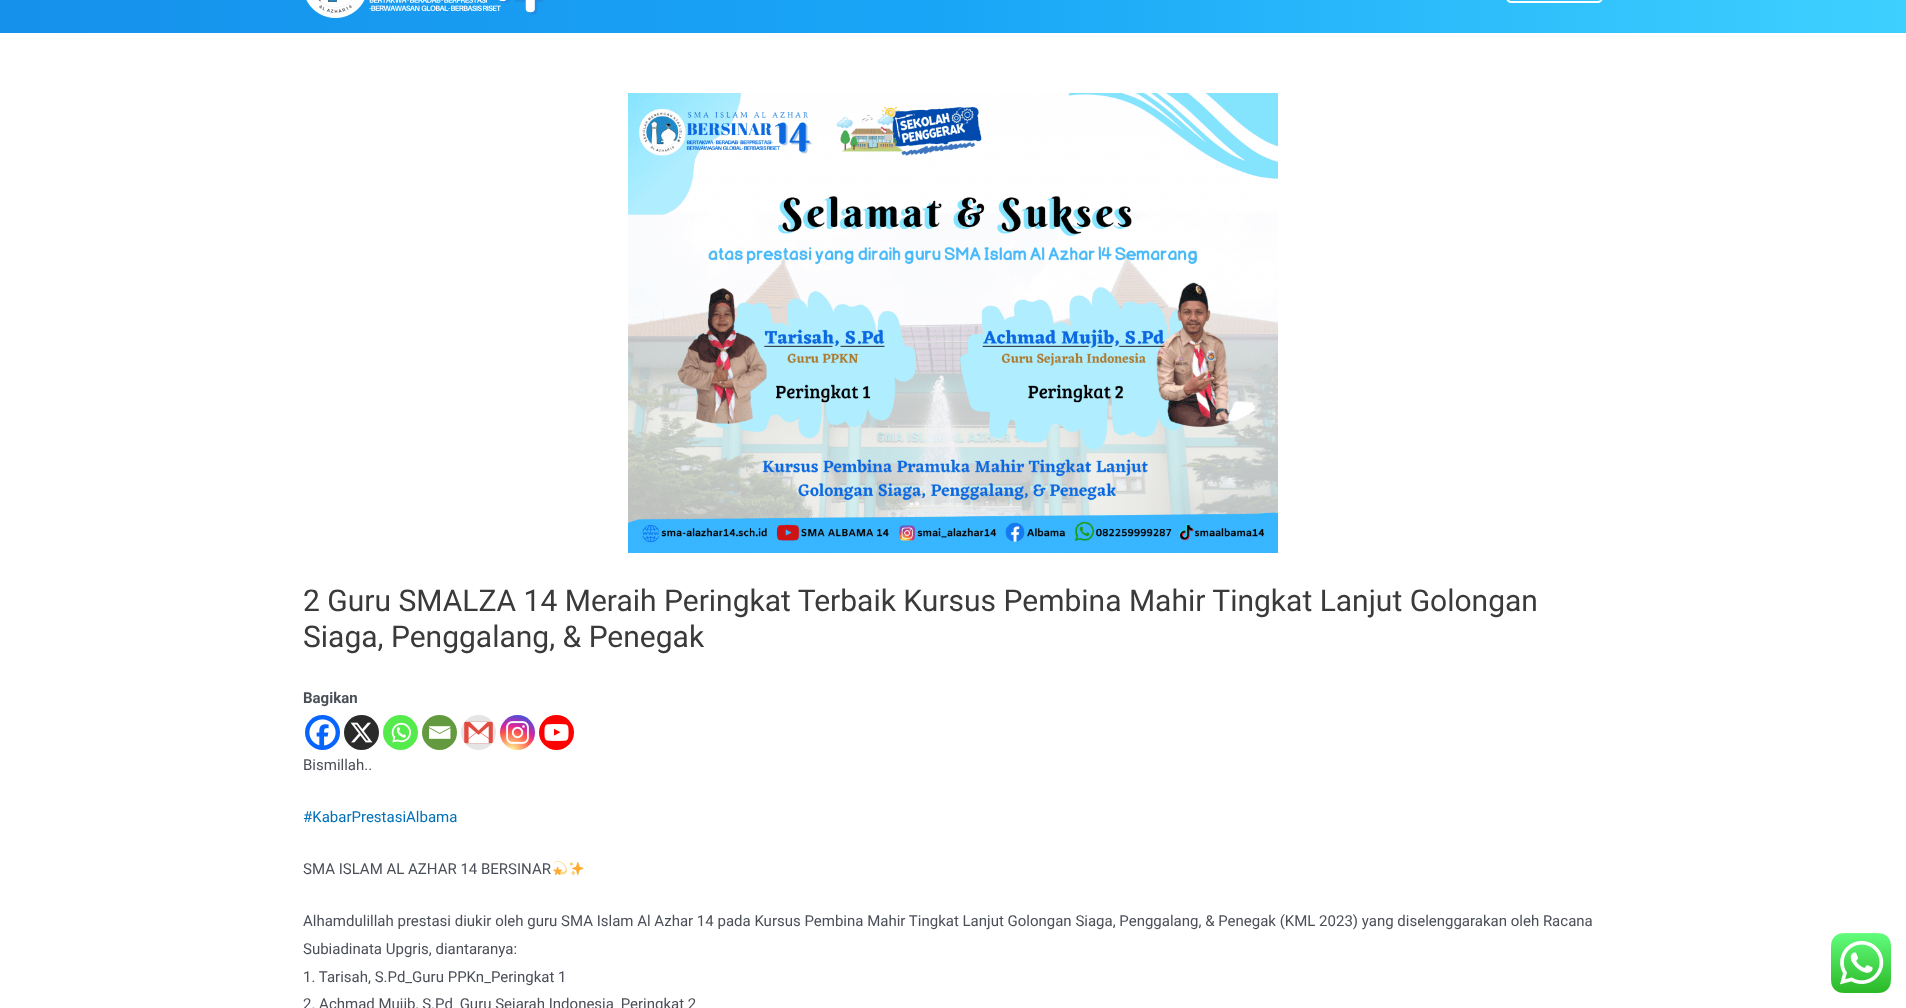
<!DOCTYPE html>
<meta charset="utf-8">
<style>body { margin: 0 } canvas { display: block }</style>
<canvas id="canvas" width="1906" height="1008"></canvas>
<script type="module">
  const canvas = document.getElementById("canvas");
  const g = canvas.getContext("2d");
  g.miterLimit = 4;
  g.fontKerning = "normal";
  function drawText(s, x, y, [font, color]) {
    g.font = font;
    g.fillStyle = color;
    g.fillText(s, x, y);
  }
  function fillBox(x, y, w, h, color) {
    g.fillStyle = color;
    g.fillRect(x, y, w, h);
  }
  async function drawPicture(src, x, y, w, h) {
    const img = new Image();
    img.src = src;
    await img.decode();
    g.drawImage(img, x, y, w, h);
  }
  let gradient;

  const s1 = ["30px Roboto", "#3A3A3A"];
  const s2 = ["bold 15px Roboto", "#4B4F58"];
  const s3 = ["15px Roboto", "#4B4F58"];
  const s4 = ["15px Roboto", "#0170B9"];

  fillBox(0, 0, 1906, 1008, "#FFFFFF");
  gradient = g.createLinearGradient(0, -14, 1906, -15);
  gradient.addColorStop(0, "#1691EB");
  gradient.addColorStop(0.5, "#19A6F7");
  gradient.addColorStop(1, "#3ED1FF");
  g.fillStyle = gradient;
  g.fillRect(0, 0, 1906, 33);
  g.beginPath();
  g.roundRect(1507, -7, 95, 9, 5);
  g.strokeStyle = "#FFFFFF";
  g.lineWidth = 2;
  g.stroke();
  await drawPicture("pic1.png", 306, 0, 237, 18);
  await drawPicture("pic2.png", 628, 93, 650, 460);
  drawText("2 Guru SMALZA 14 Meraih Peringkat Terbaik Kursus Pembina Mahir Tingkat Lanjut Golongan", 303, 611, s1);
  drawText("Siaga, Penggalang, & Penegak", 303, 647, s1);
  drawText("Bagikan", 303, 703, s2);
  g.fillStyle = "#0765FE";
  g.beginPath();
  g.arc(322.5, 732.5, 17.5, 0, Math.PI * 2);
  g.fill();
  await drawPicture("pic3.png", 309, 719, 27, 27);
  g.fillStyle = "#2A2A2A";
  g.beginPath();
  g.arc(361.5, 732.5, 17.5, 0, Math.PI * 2);
  g.fill();
  await drawPicture("pic4.png", 350, 722, 23, 21);
  g.fillStyle = "#55EB4C";
  g.beginPath();
  g.arc(400.5, 732.5, 17.5, 0, Math.PI * 2);
  g.fill();
  await drawPicture("pic5.png", 391, 722, 20, 21);
  g.fillStyle = "#649A3F";
  g.beginPath();
  g.arc(439.5, 732.5, 17.5, 0, Math.PI * 2);
  g.fill();
  await drawPicture("pic6.png", 429, 726, 22, 13);
  g.fillStyle = "#E5E5E5";
  g.beginPath();
  g.arc(478.5, 732.5, 17.5, 0, Math.PI * 2);
  g.fill();
  await drawPicture("pic7.png", 464, 721, 29, 23);
  gradient = g.createRadialGradient(511, 752, 0, 511, 752, 45);
  gradient.addColorStop(0, "#FDF497");
  gradient.addColorStop(0.05, "#FDF497");
  gradient.addColorStop(0.45, "#FD5949");
  gradient.addColorStop(0.6, "#D6249F");
  gradient.addColorStop(0.9, "#285AEB");
  g.fillStyle = gradient;
  g.beginPath();
  g.arc(517.5, 732.5, 17.5, 0, Math.PI * 2);
  g.fill();
  await drawPicture("pic8.png", 506, 721, 23, 23);
  g.fillStyle = "#FF0000";
  g.beginPath();
  g.arc(556.5, 732.5, 17.5, 0, Math.PI * 2);
  g.fill();
  await drawPicture("pic9.png", 544, 724, 25, 17);
  drawText("Bismillah..", 303, 770, s3);
  drawText("#KabarPrestasiAlbama", 303, 822, s4);
  drawText("SMA ISLAM AL AZHAR 14 BERSINAR", 303, 874, s3);
  await drawPicture("pic10.png", 553, 861, 14, 15);
  await drawPicture("pic11.png", 569, 861, 15, 15);
  drawText("Alhamdulillah prestasi diukir oleh guru SMA Islam Al Azhar 14 pada Kursus Pembina Mahir Tingkat Lanjut Golongan Siaga, Penggalang, & Penegak (KML 2023) yang diselenggarakan oleh Racana", 303, 926, s3);
  drawText("Subiadinata Upgris, diantaranya:", 303, 954, s3);
  drawText("1. Tarisah, S.Pd_Guru PPKn_Peringkat 1", 303, 982, s3);
  drawText("2. Achmad Mujib, S.Pd_Guru Sejarah Indonesia_Peringkat 2", 303, 1009, s3);
  await drawPicture("pic12.png", 1831, 933, 60, 60);
</script>
